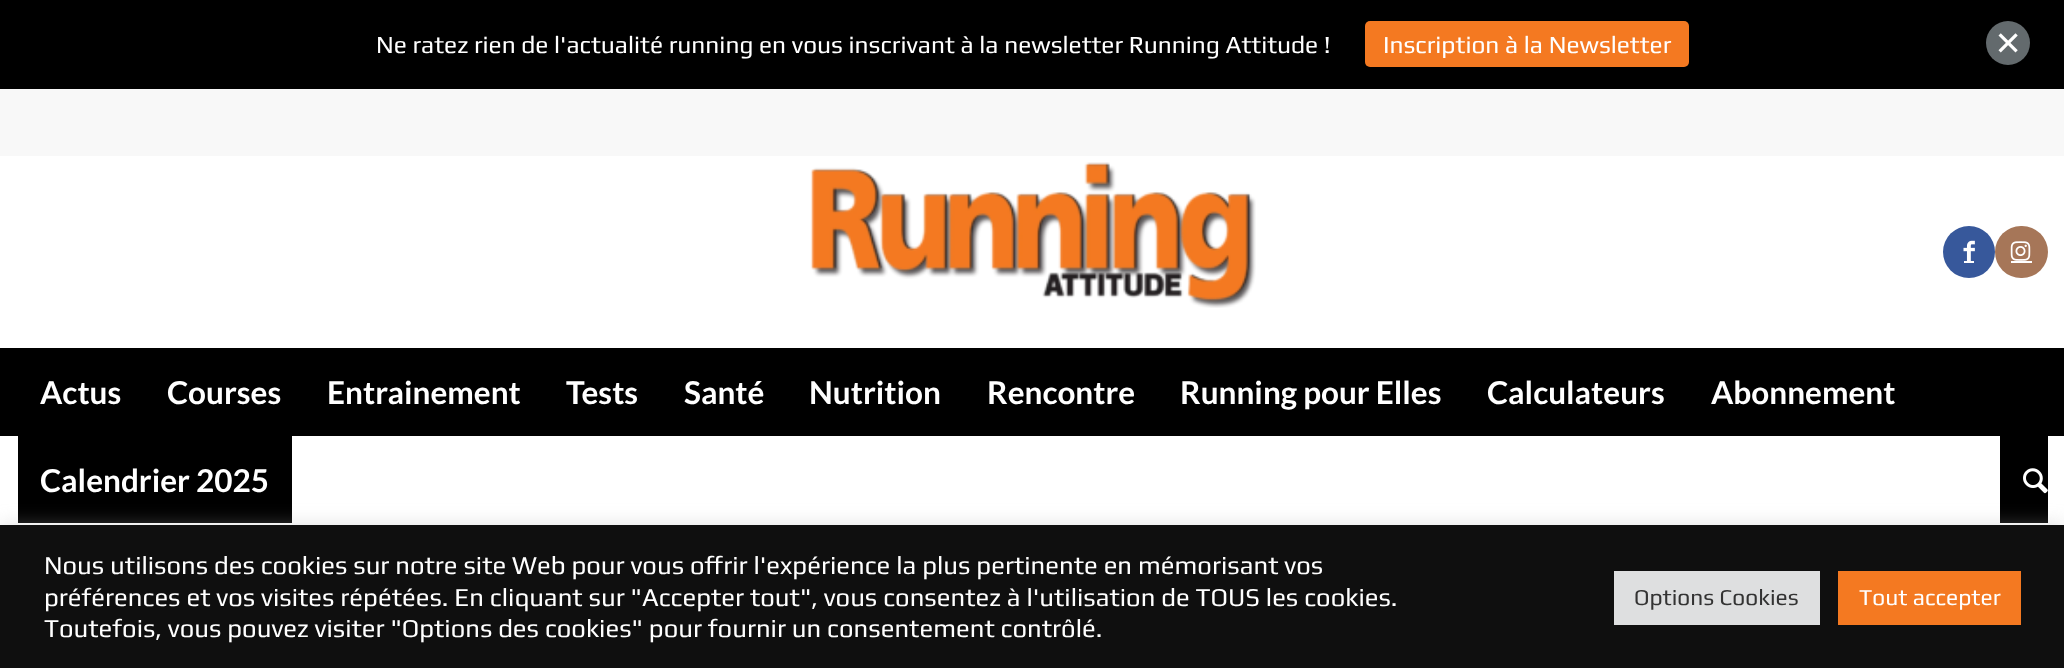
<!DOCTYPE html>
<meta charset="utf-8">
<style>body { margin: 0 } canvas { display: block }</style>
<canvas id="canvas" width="2064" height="668"></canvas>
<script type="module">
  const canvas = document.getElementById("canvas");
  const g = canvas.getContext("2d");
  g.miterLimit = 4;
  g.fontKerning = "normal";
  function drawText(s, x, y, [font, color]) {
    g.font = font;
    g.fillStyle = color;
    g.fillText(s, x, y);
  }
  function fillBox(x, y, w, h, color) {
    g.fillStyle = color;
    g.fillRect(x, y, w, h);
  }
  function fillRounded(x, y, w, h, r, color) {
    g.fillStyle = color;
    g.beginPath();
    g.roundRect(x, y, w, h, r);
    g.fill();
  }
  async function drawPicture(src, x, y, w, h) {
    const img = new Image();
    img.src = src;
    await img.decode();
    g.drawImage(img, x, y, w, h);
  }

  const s1 = ["24.5px Play", "#FFFFFF"];
  const s2 = ["bold 31.5px Lato", "#FFFFFF"];
  const s3 = ["25.67px Play", "#FFFFFF"];
  const s4 = ["22.75px Play", "#333333"];
  const s5 = ["22.75px Play", "#FFFFFF"];

  fillBox(0, 0, 2064, 668, "#F8F8F8");
  fillBox(0, 0, 2064, 89, "#000000");
  drawText("Ne ratez rien de l'actualité running en vous inscrivant à la newsletter Running Attitude !", 376, 53, s1);
  fillRounded(1365, 21, 324, 46, 5, "#F47921");
  drawText("Inscription à la Newsletter", 1383, 53, s1);
  g.fillStyle = "#636A6D";
  g.beginPath();
  g.arc(2008, 43, 22, 0, Math.PI * 2);
  g.fill();
  await drawPicture("pic1.png", 1998, 33, 20, 20);
  fillBox(0, 156, 2064, 369, "#FFFFFF");
  await drawPicture("pic2.png", 810, 162, 446, 146);
  g.fillStyle = "#37589B";
  g.beginPath();
  g.arc(1969, 252, 26, 0, Math.PI * 2);
  g.fill();
  await drawPicture("pic3.png", 1963, 240, 12, 21);
  fillBox(1964, 261, 10, 2, "#FFFFFF");
  fillRounded(1995, 226, 53, 52, 26, "#A67658");
  await drawPicture("pic4.png", 2010, 241, 21, 20);
  fillBox(2011, 261, 21, 2, "#FFFFFF");
  fillBox(0, 348, 2064, 88, "#000000");
  drawText("Actus", 40, 404, s2);
  drawText("Courses", 167, 404, s2);
  drawText("Entrainement", 327, 404, s2);
  drawText("Tests", 566, 404, s2);
  drawText("Santé", 684, 404, s2);
  drawText("Nutrition", 809, 404, s2);
  drawText("Rencontre", 987, 404, s2);
  drawText("Running pour Elles", 1180, 404, s2);
  drawText("Calculateurs", 1487, 404, s2);
  drawText("Abonnement", 1711, 404, s2);
  fillBox(18, 436, 274, 87, "#000000");
  drawText("Calendrier 2025", 40, 492, s2);
  fillBox(2000, 436, 48, 87, "#000000");
  await drawPicture("pic5.png", 2023, 468, 25, 26);
  g.fillStyle = "rgba(172, 171, 171, 0.3)";
  g.filter = "blur(9px)";
  g.beginPath();
  g.rect(0, 523, 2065, 144);
  g.fill();
  g.filter = "none";
  fillBox(0, 525, 2064, 143, "#0F0F0F");
  drawText("Nous utilisons des cookies sur notre site Web pour vous offrir l'expérience la plus pertinente en mémorisant vos", 44, 574, s3);
  drawText("préférences et vos visites répétées. En cliquant sur \"Accepter tout\", vous consentez à l'utilisation de TOUS les cookies.", 44, 606, s3);
  drawText("Toutefois, vous pouvez visiter \"Options des cookies\" pour fournir un consentement contrôlé.", 44, 637, s3);
  fillBox(1614, 571, 206, 54, "#DEDFE0");
  drawText("Options Cookies", 1634, 605, s4);
  fillBox(1838, 571, 183, 54, "#F47921");
  drawText("Tout accepter", 1859, 605, s5);
</script>
